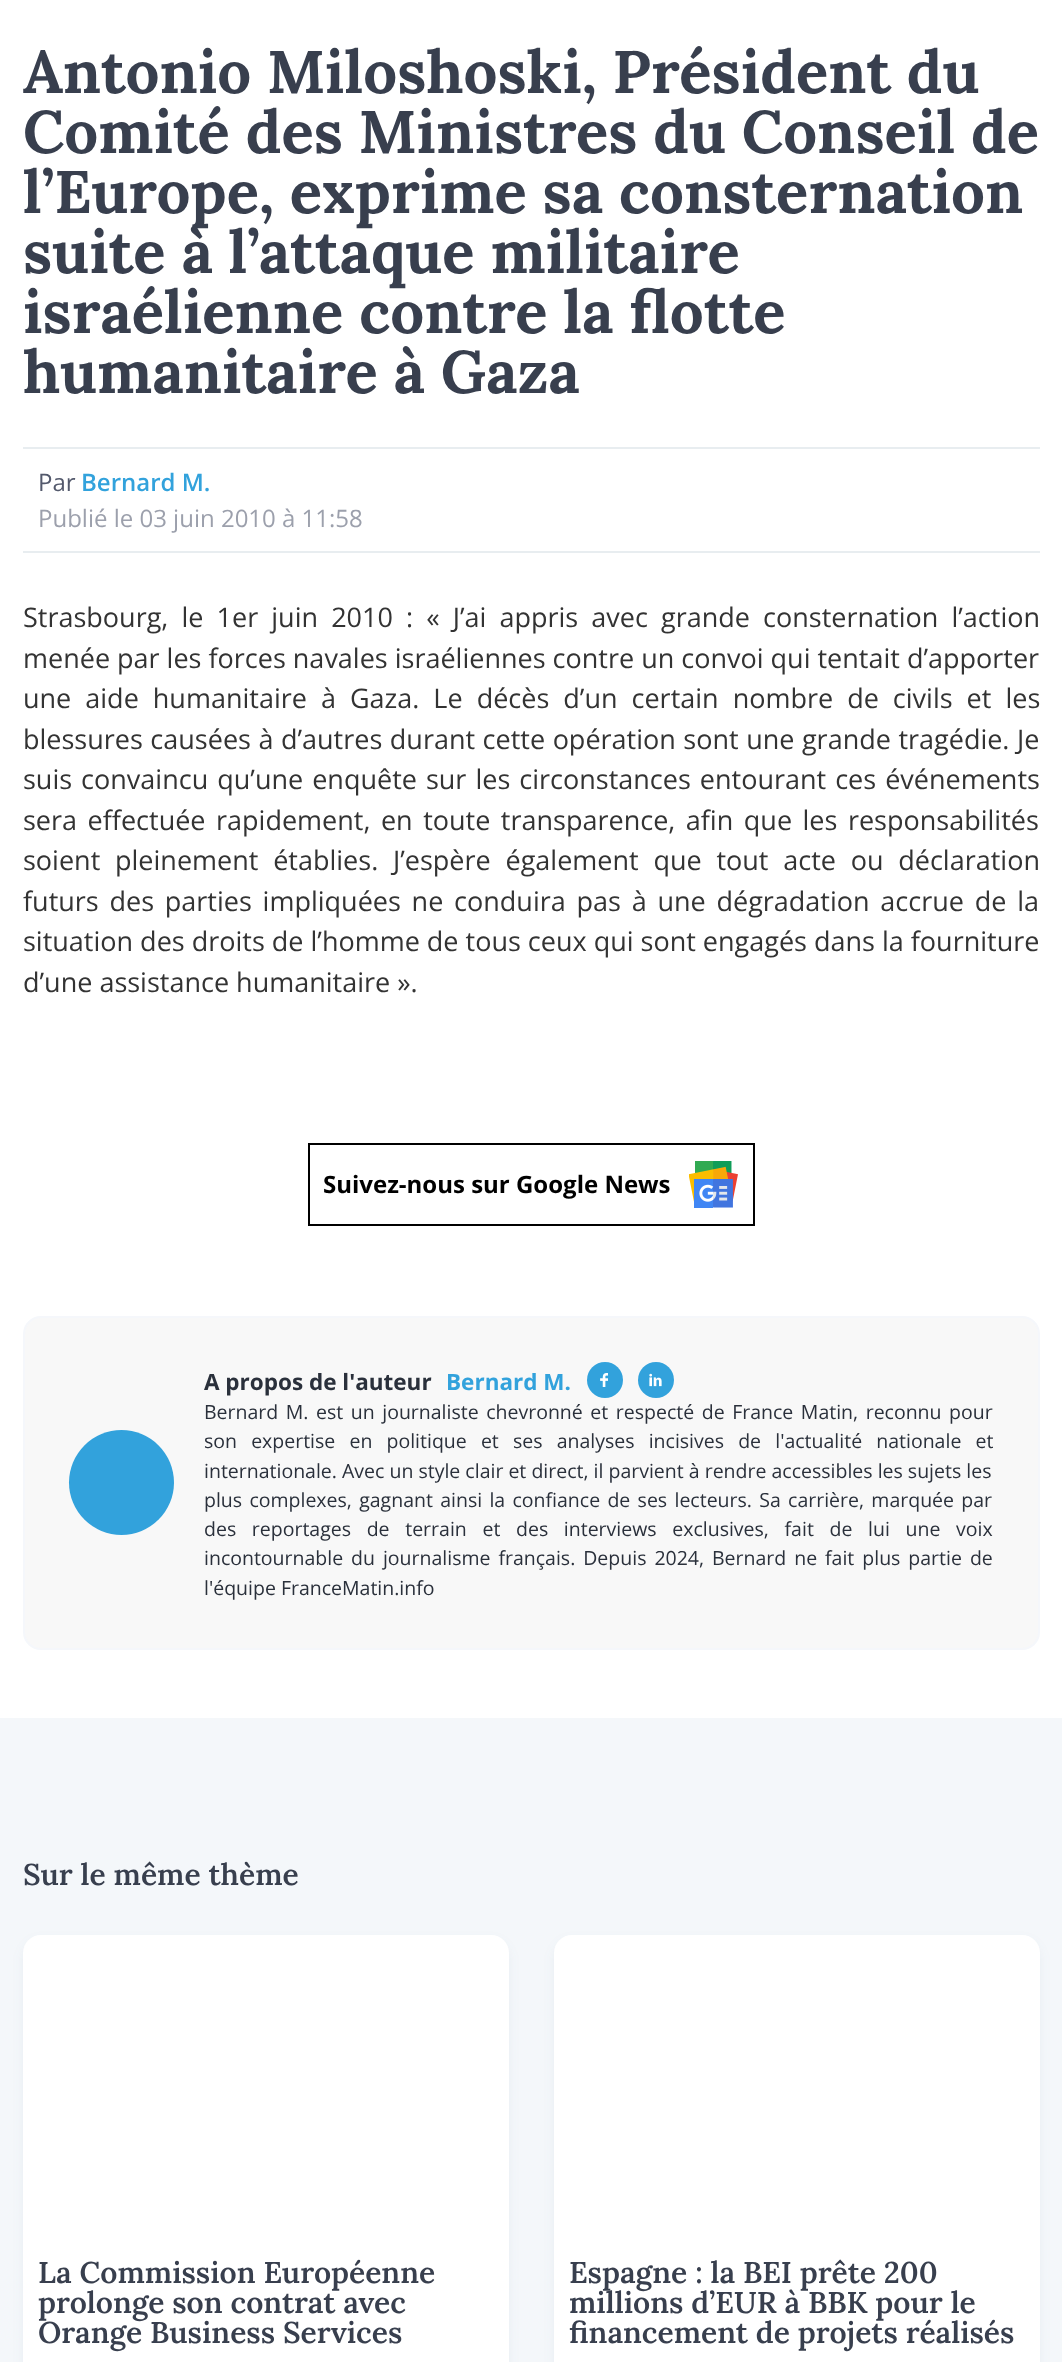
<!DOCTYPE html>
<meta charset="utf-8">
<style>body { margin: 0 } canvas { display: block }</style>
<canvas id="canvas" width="1062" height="2362"></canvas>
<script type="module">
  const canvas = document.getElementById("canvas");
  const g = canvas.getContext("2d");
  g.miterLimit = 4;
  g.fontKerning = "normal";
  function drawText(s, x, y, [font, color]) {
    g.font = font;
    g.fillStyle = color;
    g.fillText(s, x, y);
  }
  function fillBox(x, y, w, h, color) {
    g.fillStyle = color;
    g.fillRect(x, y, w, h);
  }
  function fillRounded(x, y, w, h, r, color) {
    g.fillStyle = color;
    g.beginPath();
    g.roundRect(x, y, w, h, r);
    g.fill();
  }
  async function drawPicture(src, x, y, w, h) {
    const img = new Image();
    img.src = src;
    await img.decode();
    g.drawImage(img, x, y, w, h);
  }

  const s1 = ["bold 60px Lora", "#383F4E"];
  const s2 = ["24px Open Sans", "#53596C"];
  const s3 = ["600 24px Open Sans", "#32A2DC"];
  const s4 = ["24px Open Sans", "#9CA0AC"];
  const s5 = ["27px Open Sans", "#333333"];
  const s6 = ["bold 24px Open Sans", "#000000"];
  const s7 = ["bold 22.5px Open Sans", "#2A303B"];
  const s8 = ["bold 22.5px Open Sans", "#32A2DC"];
  const s9 = ["19.5px Open Sans", "#2A303B"];
  const s10 = ["600 30px Lora", "#383F4E"];

  fillBox(0, 0, 1062, 2362, "#F4F7FA");
  fillBox(0, 0, 1062, 1718, "#FFFFFF");
  drawText("Antonio Miloshoski, Président du", 23, 93, s1);
  drawText("Comité des Ministres du Conseil de", 23, 153, s1);
  drawText("l’Europe, exprime sa consternation", 23, 213, s1);
  drawText("suite à l’attaque militaire", 23, 273, s1);
  drawText("israélienne contre la flotte", 23, 333, s1);
  drawText("humanitaire à Gaza", 23, 393, s1);
  fillBox(23, 447, 1017, 2, "#E8EDF0");
  fillBox(23, 551, 1017, 2, "#E8EDF0");
  drawText("Par", 38, 491, s2);
  drawText("Bernard M.", 81, 491, s3);
  drawText("Publié le 03 juin 2010 à 11:58", 38, 527, s4);
  g.wordSpacing = "6.1px";
  drawText("Strasbourg, le 1er juin 2010 : « J’ai appris avec grande consternation l’action", 23, 627, s5);
  g.wordSpacing = "0px";
  drawText("menée par les forces navales israéliennes contre un convoi qui tentait d’apporter", 23, 668, s5);
  g.wordSpacing = "7px";
  drawText("une aide humanitaire à Gaza. Le décès d’un certain nombre de civils et les", 23, 708, s5);
  g.wordSpacing = "0.5px";
  drawText("blessures causées à d’autres durant cette opération sont une grande tragédie. Je", 23, 749, s5);
  g.wordSpacing = "2px";
  drawText("suis convaincu qu’une enquête sur les circonstances entourant ces événements", 23, 789, s5);
  g.wordSpacing = "3.5px";
  drawText("sera effectuée rapidement, en toute transparence, afin que les responsabilités", 23, 830, s5);
  g.wordSpacing = "7.75px";
  drawText("soient pleinement établies. J’espère également que tout acte ou déclaration", 23, 870, s5);
  g.wordSpacing = "3.75px";
  drawText("futurs des parties impliquées ne conduira pas à une dégradation accrue de la", 23, 911, s5);
  g.wordSpacing = "0px";
  drawText("situation des droits de l’homme de tous ceux qui sont engagés dans la fourniture", 23, 951, s5);
  drawText("d’une assistance humanitaire ».", 23, 992, s5);
  g.strokeStyle = "#000000";
  g.lineWidth = 2;
  g.strokeRect(309, 1144, 445, 81);
  drawText("Suivez-nous sur Google News", 323, 1193, s6);
  await drawPicture("pic1.png", 689, 1161, 49, 47);
  g.fillStyle = "#F8F8F8";
  g.beginPath();
  g.roundRect(24, 1317, 1015, 332, 17);
  g.fill();
  g.strokeStyle = "#F5F7FB";
  g.stroke();
  g.fillStyle = "#32A2DC";
  g.beginPath();
  g.arc(121.5, 1482.5, 52.5, 0, Math.PI * 2);
  g.fill();
  drawText("A propos de l'auteur", 204, 1390, s7);
  drawText("Bernard M.", 446, 1390, s8);
  g.beginPath();
  g.arc(605, 1380, 18, 0, Math.PI * 2);
  g.fill();
  await drawPicture("pic2.png", 600, 1373, 8, 14);
  g.beginPath();
  g.arc(656, 1380, 18, 0, Math.PI * 2);
  g.fill();
  await drawPicture("pic3.png", 649, 1373, 13, 14);
  g.wordSpacing = "2.5px";
  drawText("Bernard M. est un journaliste chevronné et respecté de France Matin, reconnu pour", 204, 1419, s9);
  g.wordSpacing = "9.1px";
  drawText("son expertise en politique et ses analyses incisives de l'actualité nationale et", 204, 1448, s9);
  g.wordSpacing = "0px";
  drawText("internationale. Avec un style clair et direct, il parvient à rendre accessibles les sujets les", 204, 1478, s9);
  g.wordSpacing = "2.25px";
  drawText("plus complexes, gagnant ainsi la confiance de ses lecteurs. Sa carrière, marquée par", 204, 1507, s9);
  g.wordSpacing = "10.6px";
  drawText("des reportages de terrain et des interviews exclusives, fait de lui une voix", 204, 1536, s9);
  g.wordSpacing = "2.9px";
  drawText("incontournable du journalisme français. Depuis 2024, Bernard ne fait plus partie de", 204, 1565, s9);
  g.wordSpacing = "0px";
  drawText("l'équipe FranceMatin.info", 204, 1595, s9);
  drawText("Sur le même thème", 23, 1885, s10);
  g.fillStyle = "rgba(51, 77, 114, 0.06)";
  g.filter = "blur(6px)";
  g.beginPath();
  g.roundRect(23, 1941, 486, 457, 18);
  g.fill();
  g.filter = "none";
  fillRounded(23, 1935, 486, 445, 18, "#FFFFFF");
  drawText("La Commission Européenne", 38, 2283, s10);
  drawText("prolonge son contrat avec", 38, 2313, s10);
  drawText("Orange Business Services", 38, 2343, s10);
  g.fillStyle = "rgba(51, 77, 114, 0.06)";
  g.filter = "blur(6px)";
  g.beginPath();
  g.roundRect(554, 1941, 486, 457, 18);
  g.fill();
  g.filter = "none";
  fillRounded(554, 1935, 486, 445, 18, "#FFFFFF");
  drawText("Espagne : la BEI prête 200", 569, 2283, s10);
  drawText("millions d’EUR à BBK pour le", 569, 2313, s10);
  drawText("financement de projets réalisés", 569, 2343, s10);
</script>
